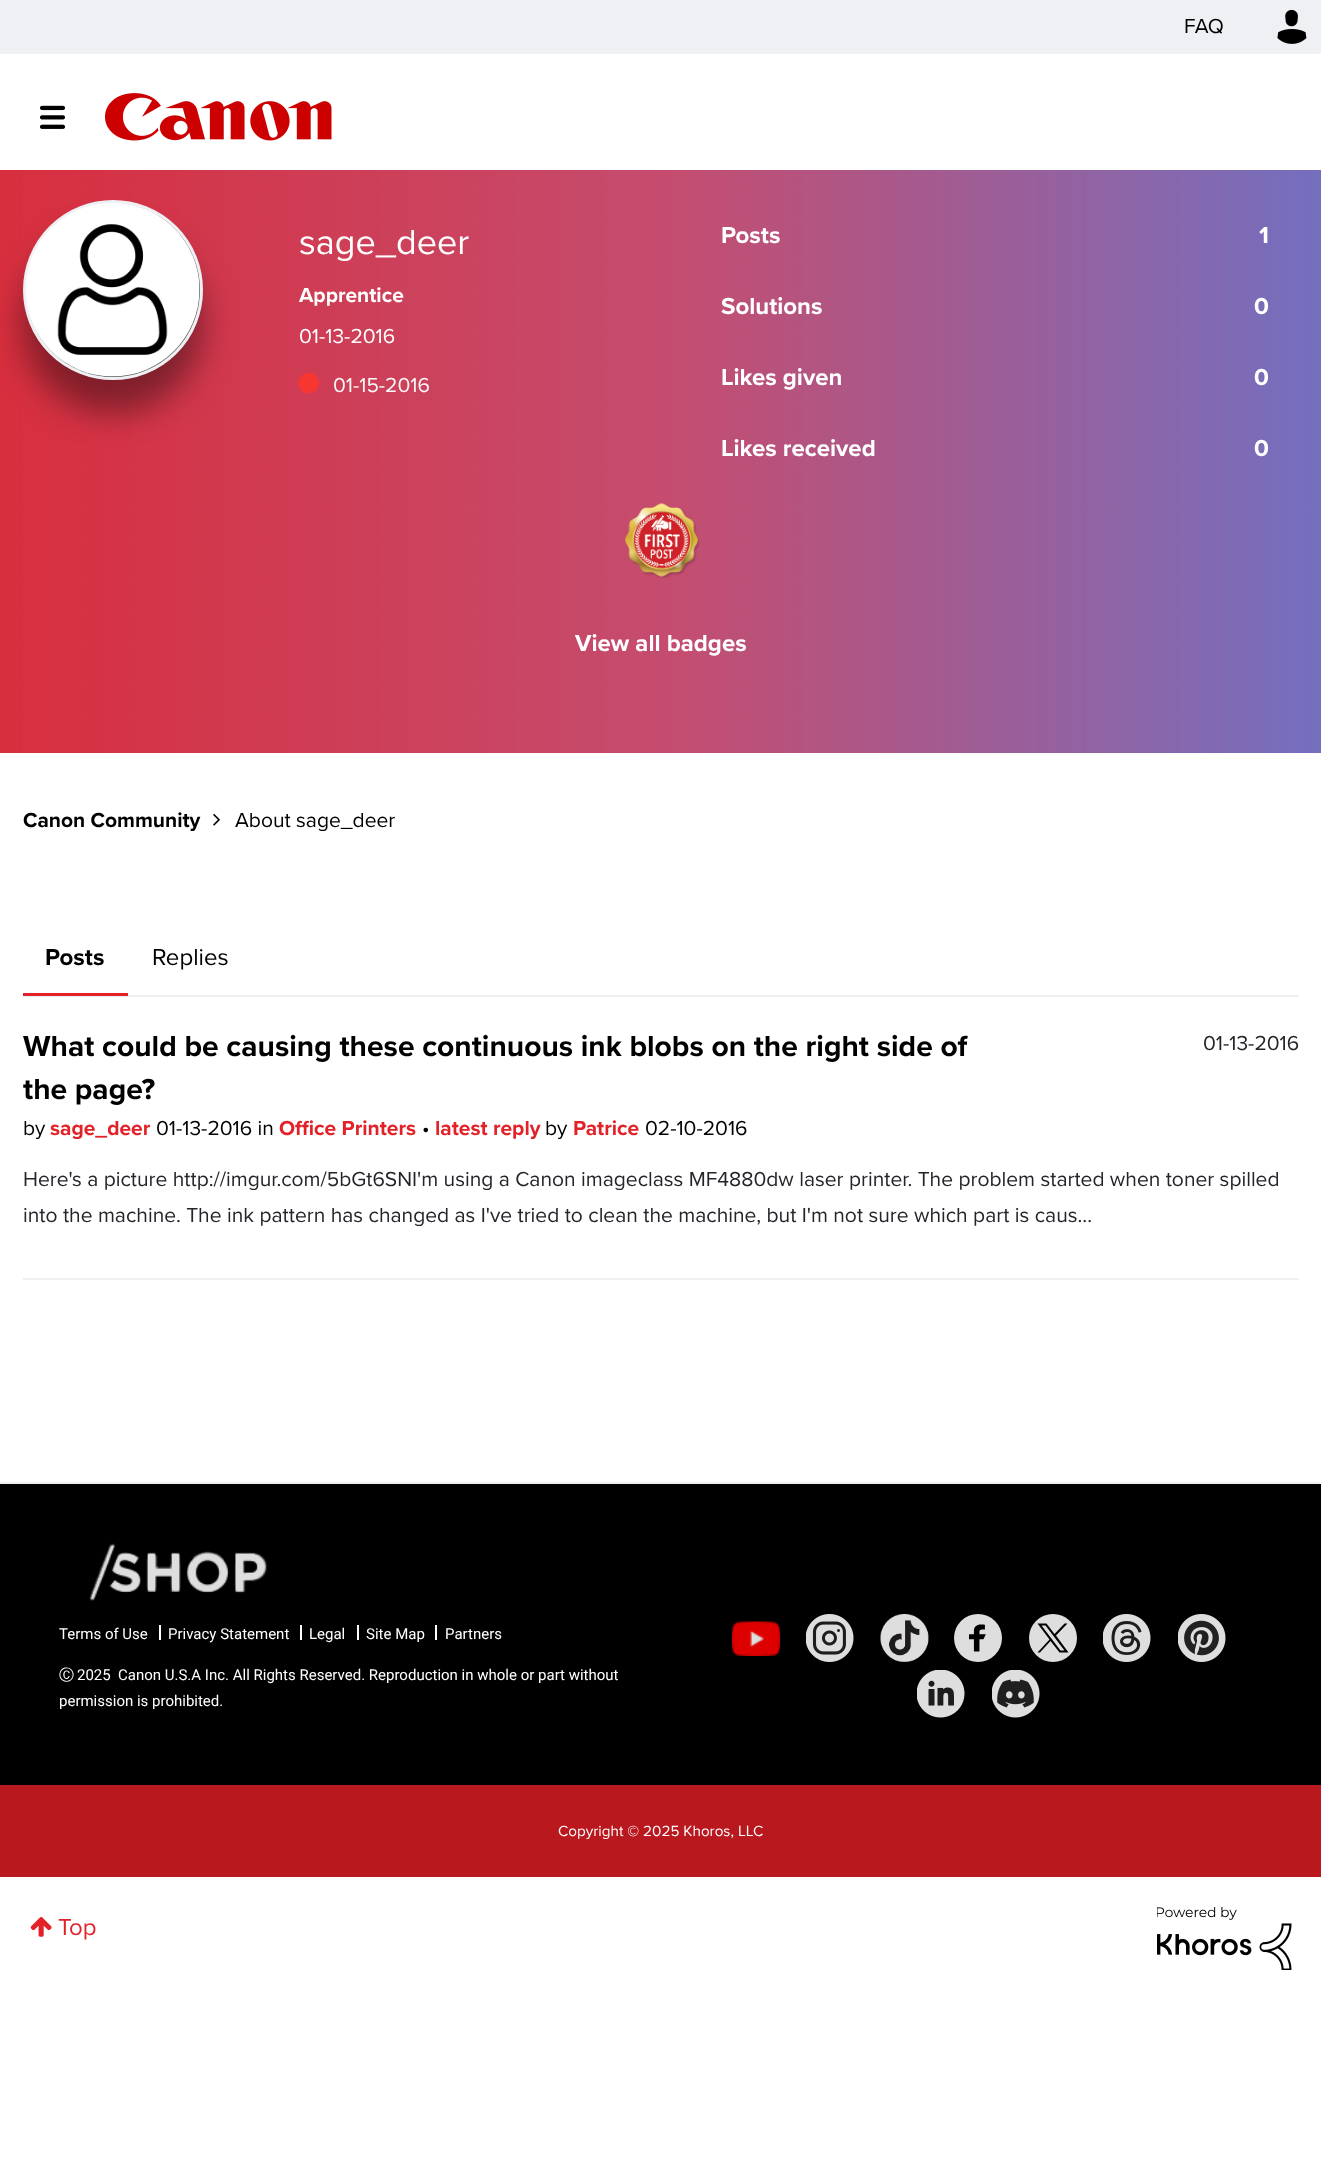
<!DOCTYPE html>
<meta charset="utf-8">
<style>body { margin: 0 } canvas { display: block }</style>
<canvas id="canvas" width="1321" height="2170"></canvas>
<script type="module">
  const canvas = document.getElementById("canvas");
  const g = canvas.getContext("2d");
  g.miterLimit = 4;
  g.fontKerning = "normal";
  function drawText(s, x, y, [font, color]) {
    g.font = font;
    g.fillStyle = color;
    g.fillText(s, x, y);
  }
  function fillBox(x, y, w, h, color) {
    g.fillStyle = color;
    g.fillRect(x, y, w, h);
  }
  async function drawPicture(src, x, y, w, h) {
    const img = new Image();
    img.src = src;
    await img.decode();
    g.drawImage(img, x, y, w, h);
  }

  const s1 = ["21px Proxima Nova", "#000000"];
  const s2 = ["36px Proxima Nova", "#FFFFFF"];
  const s3 = ["bold 21px Proxima Nova", "#FFFFFF"];
  const s4 = ["21px Proxima Nova", "#FFFFFF"];
  const s5 = ["21px Proxima Nova", "#F8F8F8"];
  const s6 = ["bold 24px Proxima Nova", "#FFFFFF"];
  const s7 = ["bold 21px Proxima Nova", "#000000"];
  const s8 = ["bold 24px Proxima Nova", "#000000"];
  const s9 = ["24px Proxima Nova", "#000000"];
  const s10 = ["bold 30px Proxima Nova", "#000000"];
  const s11 = ["bold 21px Proxima Nova", "#E22128"];
  const s12 = ["21px Proxima Nova", "#24252A"];
  const s13 = ["15px Roboto", "#FFFFFF"];
  const s14 = ["500 15px WenQuanYi Zen Hei", "#FFFFFF"];
  const s15 = ["15.25px Proxima Nova", "#FFFFFF"];
  const s16 = ["24px Proxima Nova", "#E22128"];

  fillBox(0, 0, 1321, 2170, "#FFFFFF");
  fillBox(0, 0, 1321, 54, "#EFF0F3");
  drawText("FAQ", 1184, 33, s1);
  await drawPicture("pic1.png", 1277, 9, 30, 35);
  await drawPicture("pic2.png", 39, 105, 27, 24);
  await drawPicture("pic3.png", 105, 93, 227, 48);
  await drawPicture("pic4.png", 0, 170, 1321, 583);
  g.fillStyle = "rgba(0, 0, 0, 0.4)";
  g.filter = "blur(16.5px)";
  g.beginPath();
  g.roundRect(23, 233, 180, 180, 90);
  g.fill();
  g.filter = "none";
  g.fillStyle = "#5D5D5D";
  g.beginPath();
  g.arc(113, 290, 88.5, 0, Math.PI * 2);
  g.fill();
  g.strokeStyle = "#EFF0F3";
  g.lineWidth = 3;
  g.stroke();
  await drawPicture("pic5.png", 25, 203, 175, 174);
  drawText("sage_deer", 299, 254, s2);
  drawText("Apprentice", 299, 302, s3);
  drawText("01-13-2016", 299, 343, s4);
  g.fillStyle = "#F73631";
  g.beginPath();
  g.moveTo(317.5, 378);
  g.bezierCurveTo(324.5, 389.5, 306.5, 400, 300, 388);
  g.bezierCurveTo(293, 376.5, 311, 366, 317.5, 378);
  g.closePath();
  g.fill();
  drawText("01-15-2016", 333, 392, s5);
  drawText("Posts", 721, 243, s6);
  drawText("1", 1259, 243, s6);
  drawText("Solutions", 721, 314, s6);
  drawText("0", 1254, 314, s6);
  drawText("Likes given", 721, 385, s6);
  drawText("0", 1254, 385, s6);
  drawText("Likes received", 721, 456, s6);
  drawText("0", 1254, 456, s6);
  await drawPicture("pic6.png", 625, 503, 74, 75);
  drawText("View all badges", 575, 651, s6);
  drawText("Canon Community", 23, 827, s7);
  await drawPicture("pic7.png", 213, 814, 7, 12);
  drawText("About sage_deer", 235, 827, s1);
  fillBox(23, 995, 1276, 2, "#EFF0F3");
  fillBox(23, 993, 105, 3, "#E22128");
  drawText("Posts", 45, 965, s8);
  drawText("Replies", 152, 965, s9);
  fillBox(23, 1278, 1276, 2, "#EFF0F3");
  drawText("What could be causing these continuous ink blobs on the right side of", 23, 1056, s10);
  drawText("the page?", 23, 1099, s10);
  drawText("by", 23, 1135, s1);
  drawText("sage_deer", 50, 1135, s11);
  drawText("01-13-2016 in", 156, 1135, s1);
  drawText("Office Printers", 279, 1135, s11);
  drawText("•", 422, 1135, s1);
  drawText("latest reply", 435, 1135, s11);
  drawText("by", 545, 1135, s1);
  drawText("Patrice", 573, 1135, s11);
  drawText("02-10-2016", 645, 1135, s1);
  drawText("01-13-2016", 1203, 1050, s12);
  drawText("Here's a picture http://imgur.com/5bGt6SNI'm using a Canon imageclass MF4880dw laser printer. The problem started when toner spilled", 23, 1186, s12);
  drawText("into the machine. The ink pattern has changed as I've tried to clean the machine, but I'm not sure which part is caus...", 23, 1222, s12);
  fillBox(0, 1482, 1321, 2, "#EFF0F3");
  fillBox(0, 1484, 1321, 301, "#000000");
  await drawPicture("pic8.png", 89, 1543, 179, 58);
  drawText("Terms of Use", 59, 1639, s13);
  fillBox(159, 1625, 2, 15, "#FFFFFF");
  drawText("Privacy Statement", 168, 1639, s13);
  fillBox(300, 1625, 2, 15, "#FFFFFF");
  drawText("Legal", 309, 1639, s13);
  fillBox(357, 1625, 2, 15, "#FFFFFF");
  drawText("Site Map", 366, 1639, s13);
  fillBox(435, 1625, 2, 15, "#FFFFFF");
  drawText("Partners", 445, 1639, s13);
  drawText("Ⓒ", 59, 1680, s14);
  drawText("2025", 77, 1680, s13);
  drawText("Canon U.S.A Inc. All Rights Reserved. Reproduction in whole or part without", 118, 1680, s13);
  drawText("permission is prohibited.", 59, 1706, s13);
  await drawPicture("pic9.png", 732, 1621, 48, 35);
  await drawPicture("pic10.png", 806, 1614, 48, 48);
  await drawPicture("pic11.png", 880, 1614, 49, 48);
  await drawPicture("pic12.png", 954, 1614, 48, 48);
  g.fillStyle = "#DEDEDE";
  g.beginPath();
  g.arc(1053, 1638, 24, 0, Math.PI * 2);
  g.fill();
  g.fillStyle = "#020202";
  g.beginPath();
  g.moveTo(1037.5, 1623.5);
  g.lineTo(1049.5, 1639.5);
  g.lineTo(1037.5, 1652.5);
  g.lineTo(1040, 1652.5);
  g.lineTo(1050.5, 1641);
  g.lineTo(1059.5, 1652.5);
  g.lineTo(1068.5, 1652.5);
  g.lineTo(1056, 1635.5);
  g.lineTo(1067.5, 1623.5);
  g.lineTo(1064.5, 1623.5);
  g.lineTo(1054.5, 1634);
  g.lineTo(1046.5, 1623.5);
  g.closePath();
  g.moveTo(1041.5, 1625.5);
  g.lineTo(1045.5, 1625.5);
  g.lineTo(1064.5, 1650.5);
  g.lineTo(1060.5, 1650.5);
  g.closePath();
  g.fill();
  await drawPicture("pic13.png", 1103, 1614, 48, 48);
  await drawPicture("pic14.png", 1178, 1614, 48, 48);
  await drawPicture("pic15.png", 917, 1670, 48, 48);
  await drawPicture("pic16.png", 992, 1670, 48, 48);
  fillBox(0, 1785, 1321, 92, "#B8181E");
  drawText("Copyright © 2025 Khoros, LLC", 558, 1836, s15);
  await drawPicture("pic17.png", 30, 1917, 22, 20);
  drawText("Top", 58, 1935, s16);
  await drawPicture("pic18.png", 1157, 1907, 135, 63);
</script>
